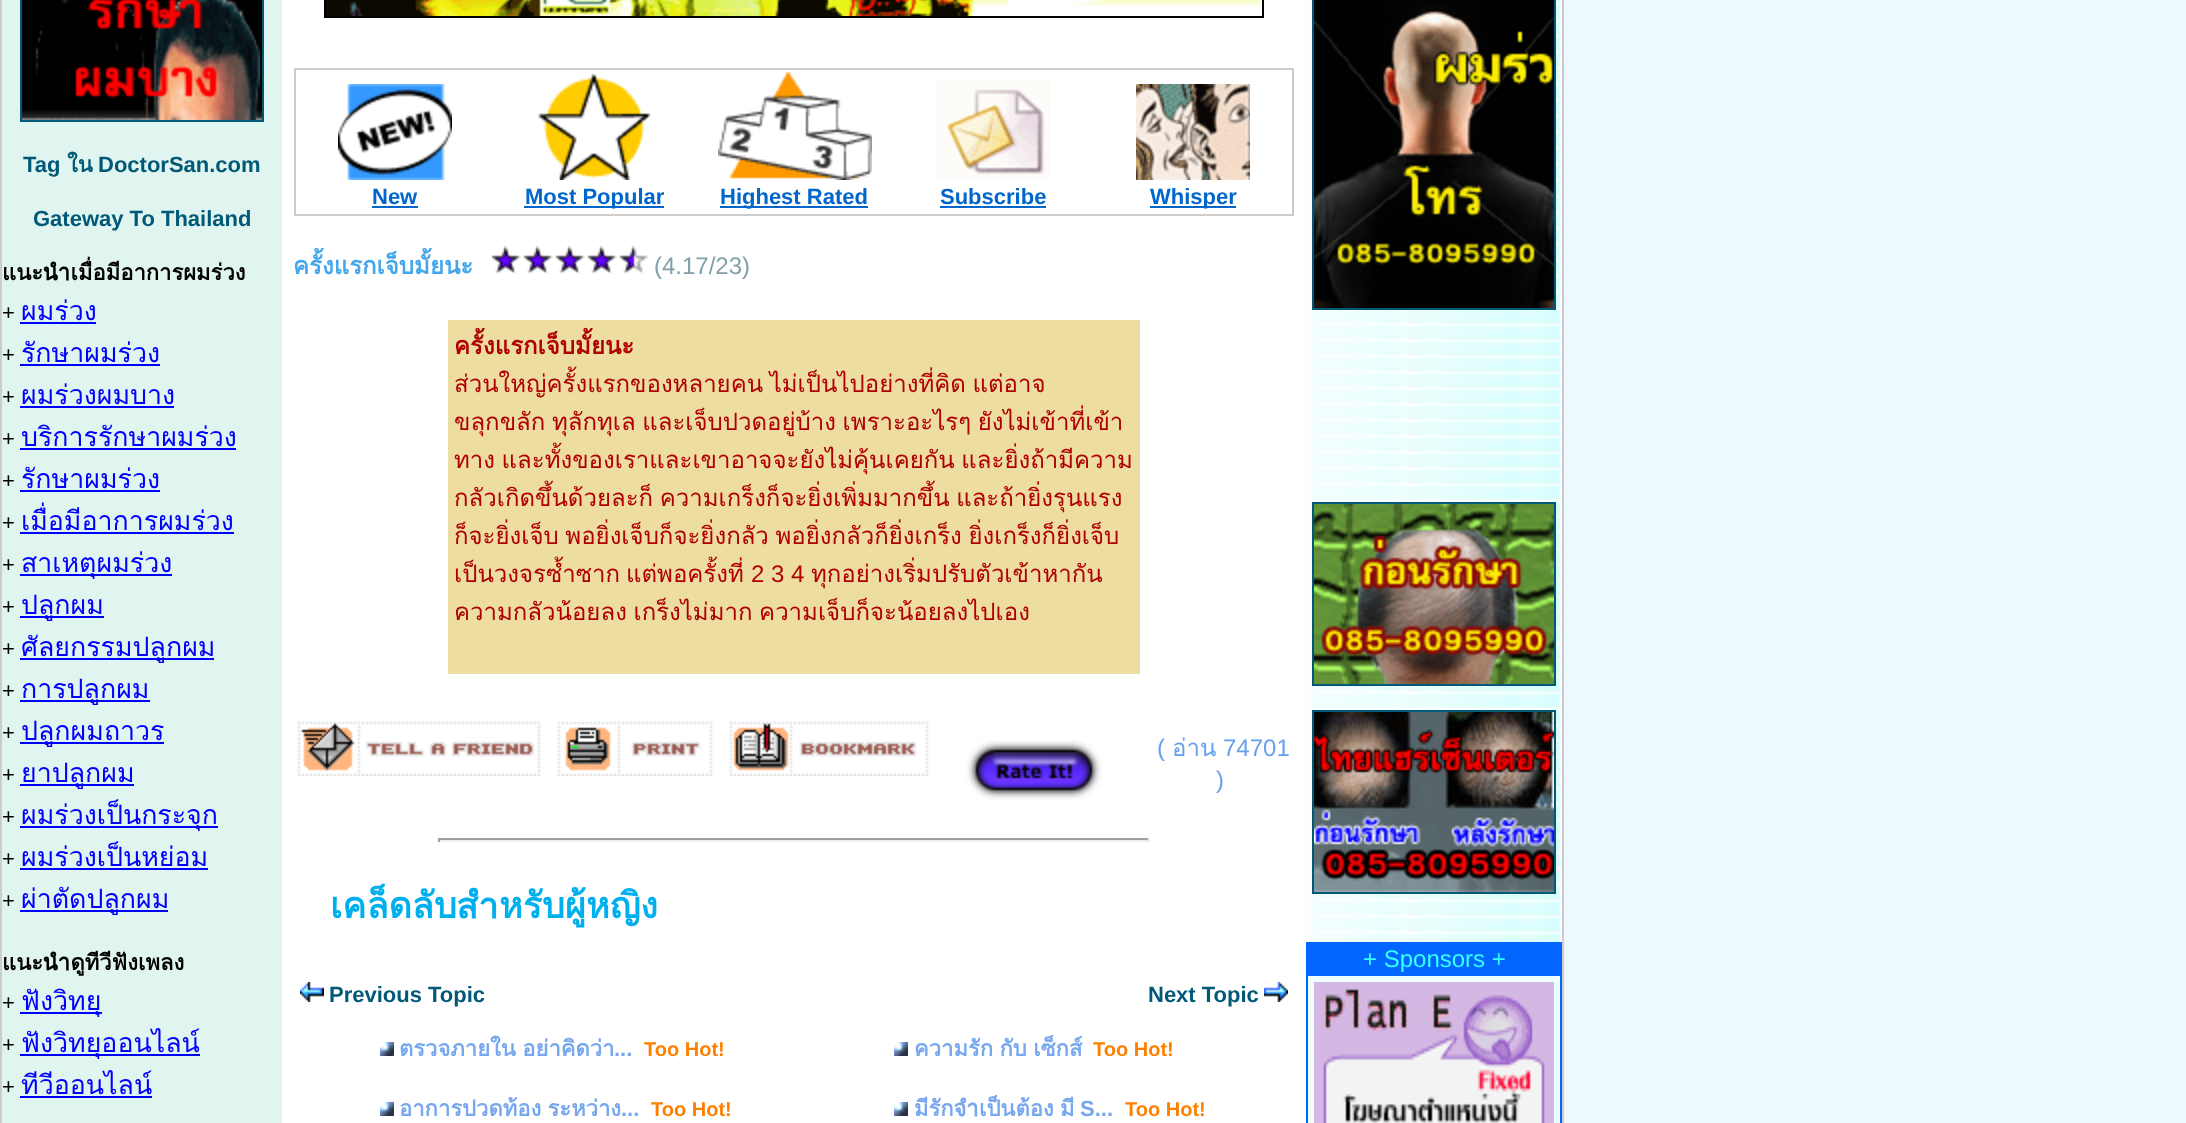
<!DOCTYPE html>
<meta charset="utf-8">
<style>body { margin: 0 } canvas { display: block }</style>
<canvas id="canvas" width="2186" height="1123"></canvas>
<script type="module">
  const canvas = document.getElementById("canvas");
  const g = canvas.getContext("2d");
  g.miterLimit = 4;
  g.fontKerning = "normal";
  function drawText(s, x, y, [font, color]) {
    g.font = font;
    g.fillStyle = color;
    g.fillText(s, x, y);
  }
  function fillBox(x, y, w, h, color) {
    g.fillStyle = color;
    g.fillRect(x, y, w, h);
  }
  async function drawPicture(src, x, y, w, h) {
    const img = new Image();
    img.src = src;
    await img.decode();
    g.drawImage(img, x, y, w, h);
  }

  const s1 = ["bold 22px Liberation Sans", "#005977"];
  const s2 = ["bold 22px Loma", "#005977"];
  const s3 = ["bold 22px Loma", "#000000"];
  const s4 = ["22px Liberation Sans", "#000000"];
  const s5 = ["26.75px Loma", "#0000FF"];
  const s6 = ["bold 22px Liberation Sans", "#0066CC"];
  const s7 = ["bold 24px Loma", "#44A7EE"];
  const s8 = ["24px Liberation Sans", "#80A0AA"];
  const s9 = ["bold 24px Loma", "#B00000"];
  const s10 = ["24px Loma", "#B00000"];
  const s11 = ["24px Liberation Sans", "#B00000"];
  const s12 = ["24px Liberation Sans", "#66A0EE"];
  const s13 = ["24px Loma", "#66A0EE"];
  const s14 = ["bold 36px Loma", "#00B0EE"];
  const s15 = ["bold 22px Loma", "#77A7EE"];
  const s16 = ["bold 22px Liberation Sans", "#77A7EE"];
  const s17 = ["bold 20px Liberation Sans", "#FF8000"];
  const s18 = ["24px Liberation Sans", "#33FFFF"];

  fillBox(0, 0, 2186, 1123, "#EDF8FF");
  fillBox(0, 0, 1564, 1123, "#CCCCCC");
  await drawPicture("pic1.png", 282, 0, 1280, 1123);
  fillBox(2, 0, 280, 1123, "#E0F4F0");
  g.strokeStyle = "#005977";
  g.lineWidth = 2;
  g.strokeRect(21, -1, 242, 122);
  await drawPicture("pic2.png", 22, 0, 240, 120);
  drawText("Tag", 23, 172, s1);
  drawText("ใน", 67, 172, s2);
  drawText("DoctorSan.com", 98, 172, s1);
  drawText("Gateway To Thailand", 33, 226, s1);
  drawText("แนะนำเมื่อมีอาการผมร่วง", 2, 280, s3);
  drawText("+", 2, 320, s4);
  drawText("ผมร่วง", 21, 320, s5);
  fillBox(20, 322, 76, 2, "#0000FF");
  drawText("+", 2, 362, s4);
  drawText("รักษาผมร่วง", 21, 362, s5);
  fillBox(20, 364, 140, 2, "#0000FF");
  drawText("+", 2, 404, s4);
  drawText("ผมร่วงผมบาง", 21, 404, s5);
  fillBox(20, 406, 154, 2, "#0000FF");
  drawText("+", 2, 446, s4);
  drawText("บริการรักษาผมร่วง", 21, 446, s5);
  fillBox(20, 448, 216, 2, "#0000FF");
  drawText("+", 2, 488, s4);
  drawText("รักษาผมร่วง", 21, 488, s5);
  fillBox(20, 490, 140, 2, "#0000FF");
  drawText("+", 2, 530, s4);
  drawText("เมื่อมีอาการผมร่วง", 21, 530, s5);
  fillBox(20, 532, 214, 2, "#0000FF");
  drawText("+", 2, 572, s4);
  fillBox(20, 574, 152, 2, "#0000FF");
  drawText("สาเหตุผมร่วง", 21, 572, s5);
  drawText("+", 2, 614, s4);
  fillBox(20, 616, 84, 2, "#0000FF");
  drawText("ปลูกผม", 21, 614, s5);
  drawText("+", 2, 656, s4);
  fillBox(20, 658, 194, 2, "#0000FF");
  drawText("ศัลยกรรมปลูกผม", 21, 656, s5);
  drawText("+", 2, 698, s4);
  fillBox(20, 700, 130, 2, "#0000FF");
  drawText("การปลูกผม", 21, 698, s5);
  drawText("+", 2, 740, s4);
  fillBox(20, 742, 144, 2, "#0000FF");
  drawText("ปลูกผมถาวร", 21, 740, s5);
  drawText("+", 2, 782, s4);
  fillBox(20, 784, 114, 2, "#0000FF");
  drawText("ยาปลูกผม", 21, 782, s5);
  drawText("+", 2, 824, s4);
  fillBox(20, 826, 198, 2, "#0000FF");
  drawText("ผมร่วงเป็นกระจุก", 21, 824, s5);
  drawText("+", 2, 866, s4);
  drawText("ผมร่วงเป็นหย่อม", 21, 866, s5);
  fillBox(20, 868, 188, 2, "#0000FF");
  drawText("+", 2, 908, s4);
  fillBox(20, 910, 148, 2, "#0000FF");
  drawText("ผ่าตัดปลูกผม", 21, 908, s5);
  drawText("แนะนำดูทีวีฟังเพลง", 2, 970, s3);
  drawText("+", 2, 1010, s4);
  fillBox(20, 1012, 82, 2, "#0000FF");
  drawText("ฟังวิทยุ", 21, 1010, s5);
  drawText("+", 2, 1052, s4);
  fillBox(20, 1054, 180, 2, "#0000FF");
  drawText("ฟังวิทยุออนไลน์", 21, 1052, s5);
  drawText("+", 2, 1094, s4);
  drawText("ทีวีออนไลน์", 21, 1094, s5);
  fillBox(20, 1096, 132, 2, "#0000FF");
  fillBox(324, 0, 940, 18, "#000000");
  await drawPicture("pic3.png", 326, 0, 936, 16);
  fillBox(294, 68, 1000, 148, "#CCCCCC");
  fillBox(296, 70, 996, 144, "#FFFFFF");
  await drawPicture("pic4.png", 338, 84, 114, 96);
  drawText("New", 372, 204, s6);
  fillBox(372, 206, 46, 2, "#0066CC");
  await drawPicture("pic5.png", 538, 74, 112, 106);
  fillBox(524, 206, 140, 2, "#0066CC");
  drawText("Most Popular", 525, 204, s6);
  await drawPicture("pic6.png", 718, 72, 154, 108);
  fillBox(720, 206, 148, 2, "#0066CC");
  drawText("Highest Rated", 720, 204, s6);
  await drawPicture("pic7.png", 936, 80, 114, 100);
  drawText("Subscribe", 940, 204, s6);
  fillBox(940, 206, 106, 2, "#0066CC");
  await drawPicture("pic8.png", 1136, 84, 114, 96);
  fillBox(1150, 206, 86, 2, "#0066CC");
  drawText("Whisper", 1150, 204, s6);
  drawText("ครั้งแรกเจ็บมั้ยนะ", 293, 274, s7);
  await drawPicture("pic9.png", 492, 246, 156, 28);
  drawText("(4.17/23)", 654, 274, s8);
  fillBox(448, 320, 692, 354, "#EEDDA0");
  drawText("ครั้งแรกเจ็บมั้ยนะ", 454, 354, s9);
  g.wordSpacing = "-1.5px";
  drawText("ส่วนใหญ่ครั้งแรกของหลายคน ไม่เป็นไปอย่างที่คิด แต่อาจ", 454, 392, s10);
  drawText("ขลุกขลัก ทุลักทุเล และเจ็บปวดอยู่บ้าง เพราะอะไรๆ ยังไม่เข้าที่เข้า", 454, 430, s10);
  drawText("ทาง และทั้งของเราและเขาอาจจะยังไม่คุ้นเคยกัน และยิ่งถ้ามีความ", 454, 468, s10);
  drawText("กลัวเกิดขึ้นด้วยละก็ ความเกร็งก็จะยิ่งเพิ่มมากขึ้น และถ้ายิ่งรุนแรง", 454, 506, s10);
  drawText("ก็จะยิ่งเจ็บ พอยิ่งเจ็บก็จะยิ่งกลัว พอยิ่งกลัวก็ยิ่งเกร็ง ยิ่งเกร็งก็ยิ่งเจ็บ", 454, 544, s10);
  g.wordSpacing = "0px";
  drawText("เป็นวงจรซ้ำซาก", 454, 582, s10);
  drawText("แต่พอครั้งที่", 626, 582, s10);
  drawText("2 3 4", 751, 582, s11);
  drawText("ทุกอย่างเริ่มปรับตัวเข้าหากัน", 811, 582, s10);
  g.wordSpacing = "-1.5px";
  drawText("ความกลัวน้อยลง เกร็งไม่มาก ความเจ็บก็จะน้อยลงไปเอง", 454, 620, s10);
  await drawPicture("pic10.png", 297, 721, 244, 55);
  await drawPicture("pic11.png", 557, 721, 156, 55);
  await drawPicture("pic12.png", 729, 721, 200, 55);
  await drawPicture("pic13.png", 966, 740, 136, 60);
  g.wordSpacing = "0px";
  drawText("(", 1157, 756, s12);
  drawText("อ่าน", 1172, 756, s13);
  drawText("74701", 1223, 756, s12);
  drawText(")", 1216, 788, s12);
  fillBox(438, 838, 712, 2, "#9F9F9F");
  fillBox(1148, 838, 2, 4, "#EEEEEE");
  fillBox(438, 840, 712, 2, "#EEEEEE");
  fillBox(438, 838, 2, 4, "#9F9F9F");
  drawText("เคล็ดลับสำหรับผู้หญิง", 330, 918, s14);
  await drawPicture("pic14.png", 300, 982, 24, 20);
  drawText("Previous Topic", 329, 1002, s1);
  drawText("Next Topic", 1148, 1002, s1);
  await drawPicture("pic15.png", 1264, 982, 24, 20);
  await drawPicture("pic16.png", 380, 1042, 14, 14);
  g.wordSpacing = "-1px";
  drawText("ตรวจภายใน อย่าคิดว่า", 399, 1056, s15);
  g.wordSpacing = "0px";
  drawText("...", 614, 1056, s16);
  drawText("Too Hot!", 644, 1056, s17);
  await drawPicture("pic16.png", 380, 1102, 14, 14);
  g.wordSpacing = "-1px";
  drawText("อาการปวดท้อง ระหว่าง", 399, 1116, s15);
  g.wordSpacing = "0px";
  drawText("...", 621, 1116, s16);
  drawText("Too Hot!", 651, 1116, s17);
  await drawPicture("pic16.png", 894, 1042, 14, 14);
  g.wordSpacing = "-1px";
  drawText("ความรัก กับ เซ็กส์", 914, 1056, s15);
  g.wordSpacing = "0px";
  drawText("Too Hot!", 1093, 1056, s17);
  await drawPicture("pic16.png", 894, 1102, 14, 14);
  g.wordSpacing = "-1px";
  drawText("มีรักจำเป็นต้อง มี", 914, 1116, s15);
  g.wordSpacing = "0px";
  drawText("S...", 1080, 1116, s16);
  drawText("Too Hot!", 1125, 1116, s17);
  g.strokeRect(1313, -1, 242, 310);
  await drawPicture("pic17.png", 1314, 0, 240, 308);
  g.strokeRect(1313, 503, 242, 182);
  await drawPicture("pic18.png", 1314, 504, 240, 180);
  g.strokeRect(1313, 711, 242, 182);
  await drawPicture("pic19.png", 1314, 712, 240, 180);
  fillBox(1306, 942, 256, 181, "#0066FF");
  drawText("+ Sponsors +", 1363, 967, s18);
  fillBox(1308, 976, 252, 147, "#EDFFFF");
  await drawPicture("pic20.png", 1314, 982, 240, 141);
</script>
